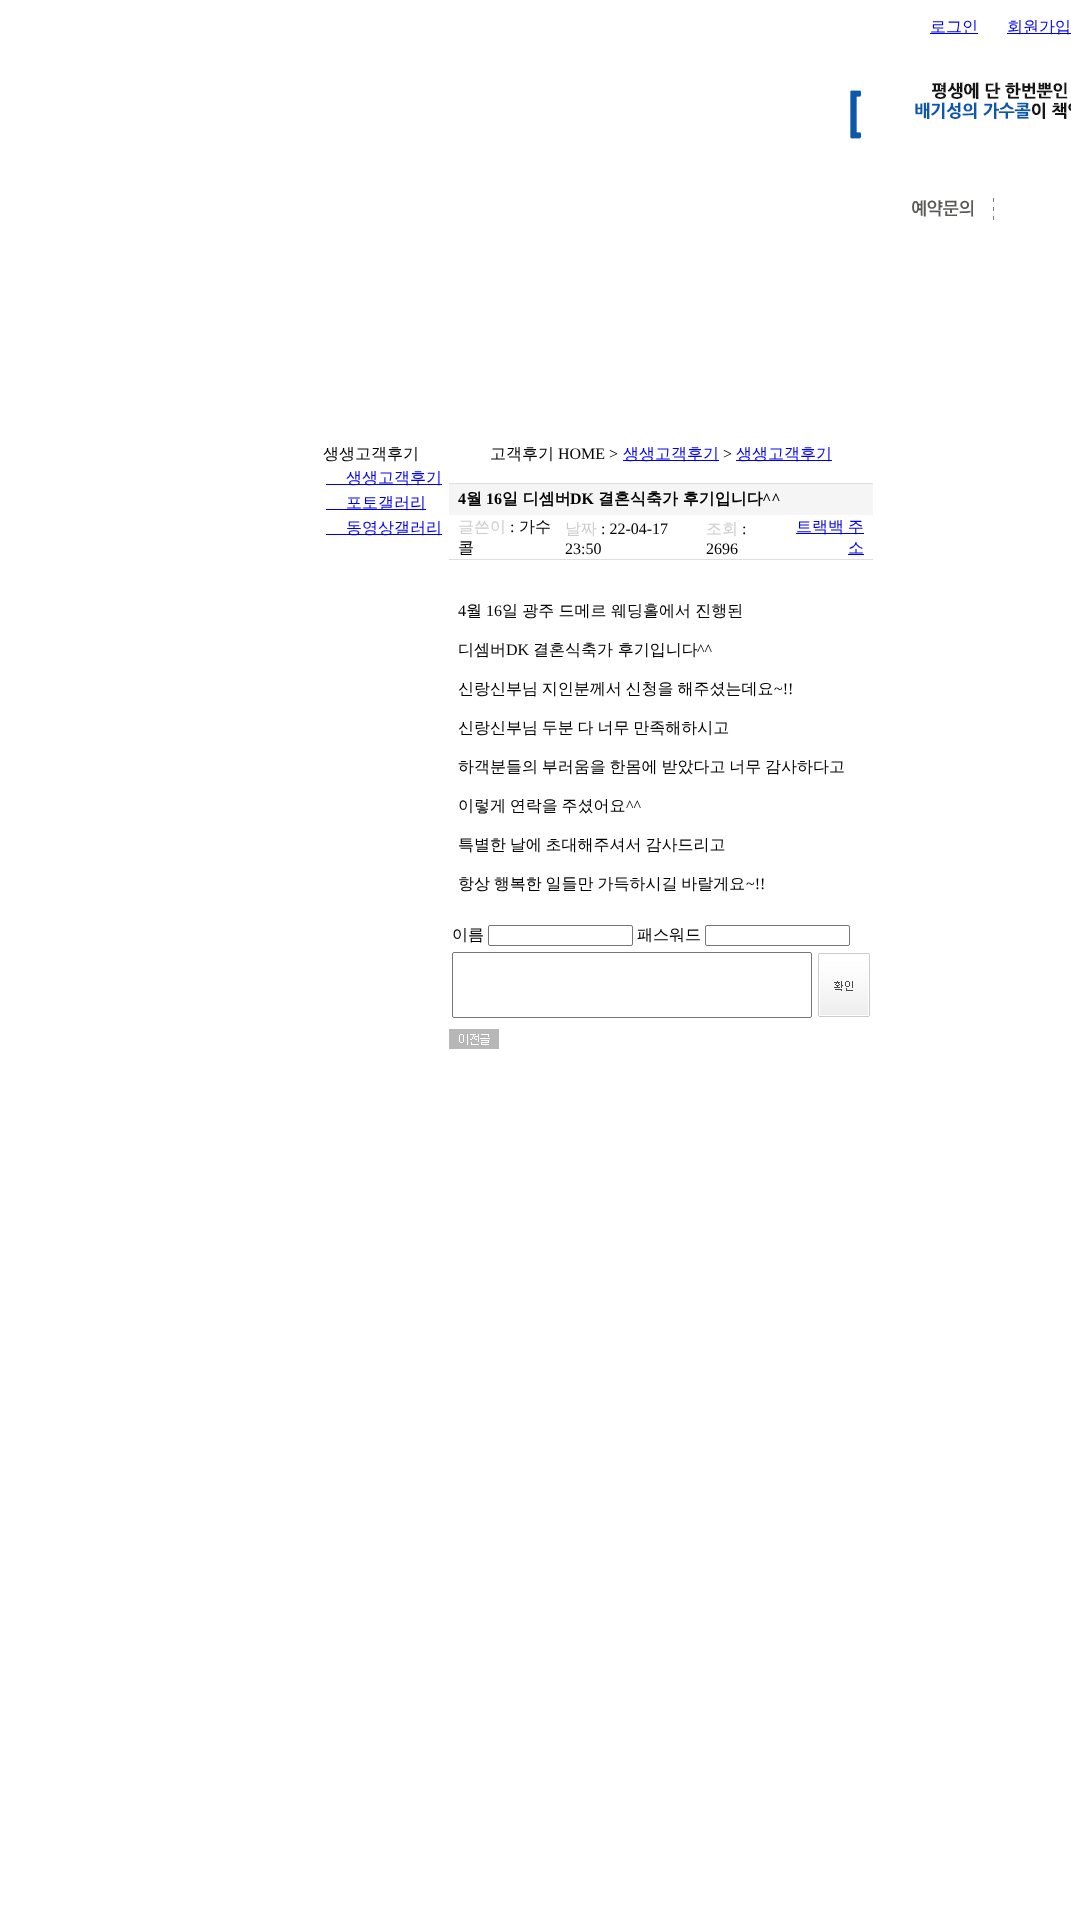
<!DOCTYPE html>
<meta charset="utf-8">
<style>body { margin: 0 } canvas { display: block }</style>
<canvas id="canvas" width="1071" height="1923"></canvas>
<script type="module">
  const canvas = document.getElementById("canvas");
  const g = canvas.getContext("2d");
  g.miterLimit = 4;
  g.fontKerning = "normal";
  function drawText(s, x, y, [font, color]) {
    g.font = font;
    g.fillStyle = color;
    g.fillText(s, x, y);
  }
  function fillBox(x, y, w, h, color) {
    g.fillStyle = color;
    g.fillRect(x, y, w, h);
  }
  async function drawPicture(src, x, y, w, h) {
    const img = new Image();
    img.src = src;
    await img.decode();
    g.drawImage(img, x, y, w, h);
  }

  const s1 = ["500 16px WenQuanYi Zen Hei", "#0000EE"];
  const s2 = ["500 16px WenQuanYi Zen Hei", "#000000"];
  const s3 = ["16px Liberation Serif", "#000000"];
  const s4 = ["bold 16px Liberation Serif", "#000000"];
  const s5 = ["bold 16px WenQuanYi Zen Hei", "#000000"];
  const s6 = ["500 16px WenQuanYi Zen Hei", "#CCCCCC"];

  fillBox(0, 0, 1071, 1923, "#FFFFFF");
  fillBox(930, 33, 48, 1, "#0000EE");
  drawText("로그인", 930, 32, s1);
  fillBox(1007, 33, 64, 1, "#0000EE");
  drawText("회원가입", 1007, 32, s1);
  await drawPicture("pic1.png", 850, 82, 221, 57);
  await drawPicture("pic2.png", 912, 198, 82, 22);
  drawText("생생고객후기", 323, 459, s2);
  fillBox(326, 484, 116, 1, "#0000EE");
  drawText("생생고객후기", 346, 483, s1);
  fillBox(326, 509, 100, 1, "#0000EE");
  drawText("포토갤러리", 346, 508, s1);
  fillBox(326, 534, 116, 1, "#0000EE");
  drawText("동영상갤러리", 346, 533, s1);
  drawText("고객후기", 490, 459, s2);
  drawText("HOME >", 558, 459, s3);
  fillBox(623, 460, 96, 1, "#0000EE");
  drawText("생생고객후기", 623, 459, s1);
  drawText(">", 723, 459, s3);
  fillBox(736, 460, 96, 1, "#0000EE");
  drawText("생생고객후기", 736, 459, s1);
  fillBox(449, 483, 424, 1, "#DEDEDE");
  fillBox(449, 484, 424, 31, "#F5F5F5");
  drawText("4", 458, 504, s4);
  drawText("월", 466, 504, s5);
  drawText("16", 486, 504, s4);
  drawText("일 디셈버", 502, 504, s5);
  drawText("DK", 570, 504, s4);
  drawText("결혼식축가 후기입니다", 598, 504, s5);
  drawText("^^", 762, 504, s4);
  drawText("글쓴이", 458, 532, s6);
  drawText(":", 510, 532, s3);
  drawText("가수", 519, 532, s2);
  drawText("콜", 458, 553, s2);
  drawText("날짜", 565, 534, s6);
  drawText(": 22-04-17", 601, 534, s3);
  drawText("23:50", 565, 554, s3);
  drawText("조회", 706, 534, s6);
  drawText(":", 742, 534, s3);
  drawText("2696", 706, 554, s3);
  fillBox(796, 533, 68, 1, "#0000EE");
  g.wordSpacing = "-1px";
  drawText("트랙백 주", 796, 532, s1);
  g.wordSpacing = "0px";
  drawText("소", 848, 553, s1);
  fillBox(848, 554, 16, 1, "#0000EE");
  fillBox(449, 559, 424, 1, "#DEDEDE");
  drawText("4", 458, 616, s3);
  drawText("월", 466, 616, s2);
  drawText("16", 486, 616, s3);
  g.wordSpacing = "-0.5px";
  drawText("일 광주 드메르 웨딩홀에서 진행된", 502, 616, s2);
  g.wordSpacing = "0px";
  drawText("디셈버", 458, 655, s2);
  drawText("DK", 506, 655, s3);
  drawText("결혼식축가 후기입니다", 533, 655, s2);
  drawText("^^", 697, 655, s3);
  g.wordSpacing = "-1px";
  drawText("신랑신부님 지인분께서 신청을 해주셨는데요", 458, 694, s2);
  g.wordSpacing = "0px";
  drawText("~!!", 774, 694, s3);
  g.wordSpacing = "-1px";
  drawText("신랑신부님 두분 다 너무 만족해하시고", 458, 733, s2);
  drawText("하객분들의 부러움을 한몸에 받았다고 너무 감사하다고", 458, 772, s2);
  drawText("이렇게 연락을 주셨어요", 458, 811, s2);
  g.wordSpacing = "0px";
  drawText("^^", 626, 811, s3);
  g.wordSpacing = "-1px";
  drawText("특별한 날에 초대해주셔서 감사드리고", 458, 850, s2);
  drawText("항상 행복한 일들만 가득하시길 바랄게요", 458, 889, s2);
  g.wordSpacing = "0px";
  drawText("~!!", 746, 889, s3);
  drawText("이름", 452, 940, s2);
  g.beginPath();
  g.roundRect(488.5, 925.5, 144, 20, 1.5);
  g.strokeStyle = "#767676";
  g.stroke();
  drawText("패스워드", 637, 940, s2);
  g.beginPath();
  g.roundRect(705.5, 925.5, 144, 20, 1.5);
  g.stroke();
  g.beginPath();
  g.roundRect(452.5, 952.5, 359, 65, 1.5);
  g.stroke();
  await drawPicture("pic3.png", 818, 953, 52, 64);
  await drawPicture("pic4.png", 449, 1029, 50, 20);
</script>
